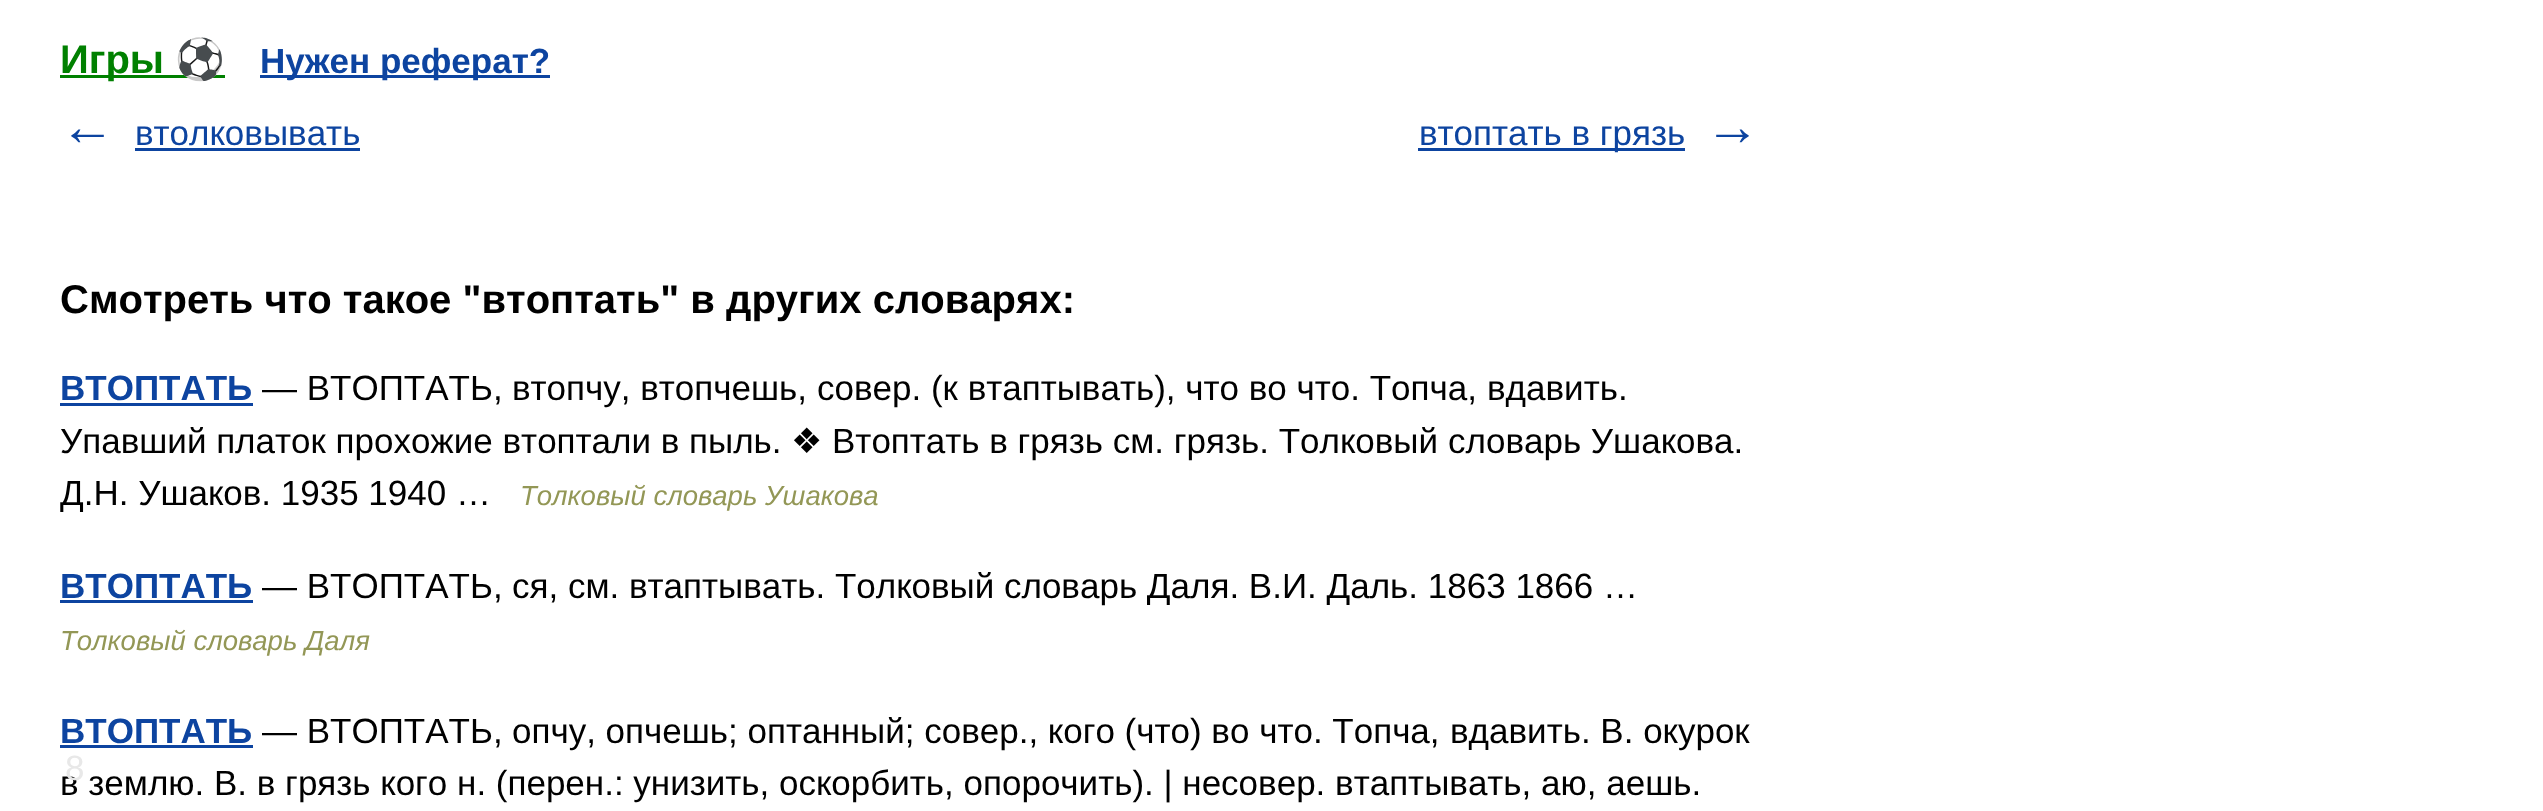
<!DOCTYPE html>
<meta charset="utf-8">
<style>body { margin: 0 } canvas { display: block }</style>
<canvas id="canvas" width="2543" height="811"></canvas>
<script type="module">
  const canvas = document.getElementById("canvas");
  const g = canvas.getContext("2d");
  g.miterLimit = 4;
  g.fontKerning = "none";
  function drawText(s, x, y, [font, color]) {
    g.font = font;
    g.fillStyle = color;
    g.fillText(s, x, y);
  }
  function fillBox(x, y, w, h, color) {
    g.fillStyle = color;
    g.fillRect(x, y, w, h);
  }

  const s1 = ["bold 40px Liberation Sans", "#008000"];
  const s2 = ["bold 40px Noto Color Emoji", "#008000"];
  const s3 = ["bold 35px Liberation Sans", "#0D44A0"];
  const s4 = ["bold 55px Liberation Sans", "#0D44A0"];
  const s5 = ["35px Liberation Sans", "#0D44A0"];
  const s6 = ["bold 40px Liberation Sans", "#000000"];
  const s7 = ["35px Liberation Sans", "#000000"];
  const s8 = ["35px DejaVu Sans", "#000000"];
  const s9 = ["italic 27.5px Liberation Sans", "#939756"];
  const s10 = ["35px Liberation Sans", "#E8E8E8"];

  fillBox(0, 0, 2543, 811, "#FFFFFF");
  fillBox(60, 75, 165, 3, "#008000");
  drawText("Игры", 60, 73, s1);
  drawText("⚽", 175, 73, s2);
  fillBox(260, 75, 290, 3, "#0D44A0");
  drawText("Нужен реферат?", 260, 73, s3);
  drawText("←", 60, 145, s4);
  drawText("втолковывать", 135, 145, s5);
  fillBox(135, 148, 225, 3, "#0D44A0");
  fillBox(1418, 148, 267, 3, "#0D44A0");
  drawText("втоптать в грязь", 1419, 145, s5);
  drawText("→", 1705, 145, s4);
  drawText("Смотреть что такое \"втоптать\" в других словарях:", 60, 313, s6);
  drawText("ВТОПТАТЬ", 60, 400, s3);
  fillBox(60, 403, 193, 3, "#0D44A0");
  drawText("— ВТОПТАТЬ,", 262, 400, s7);
  drawText("втопчу, втопчешь,", 512, 400, s7);
  drawText("совер. (к втаптывать), что во что. Топча,", 817, 400, s7);
  drawText("вдавить.", 1487, 400, s7);
  drawText("Упавший платок прохожие втоптали в пыль.", 60, 453, s7);
  drawText("❖", 791, 453, s8);
  drawText("Втоптать в грязь см. грязь. Толковый", 832, 453, s7);
  drawText("словарь Ушакова.", 1448, 453, s7);
  drawText("Д.Н. Ушаков. 1935 1940 …", 60, 505, s7);
  drawText("Толковый словарь Ушакова", 520, 505, s9);
  drawText("ВТОПТАТЬ", 60, 598, s3);
  fillBox(60, 600, 193, 3, "#0D44A0");
  drawText("— ВТОПТАТЬ,", 262, 598, s7);
  drawText("ся, см. втаптывать. Толковый словарь Даля. В.И. Даль. 1863 1866 …", 512, 598, s7);
  drawText("Толковый словарь Даля", 60, 650, s9);
  drawText("ВТОПТАТЬ", 60, 743, s3);
  fillBox(60, 745, 193, 3, "#0D44A0");
  drawText("— ВТОПТАТЬ,", 262, 743, s7);
  drawText("опчу, опчешь; оптанный; совер., кого (что) во что. Топча,", 512, 743, s7);
  drawText("вдавить. В. окурок", 1450, 743, s7);
  drawText("в землю. В. в грязь кого н. (перен.: унизить, оскорбить, опорочить). | несовер. втаптывать, аю, аешь.", 60, 795, s7);
  drawText("8", 65, 780, s10);
</script>
